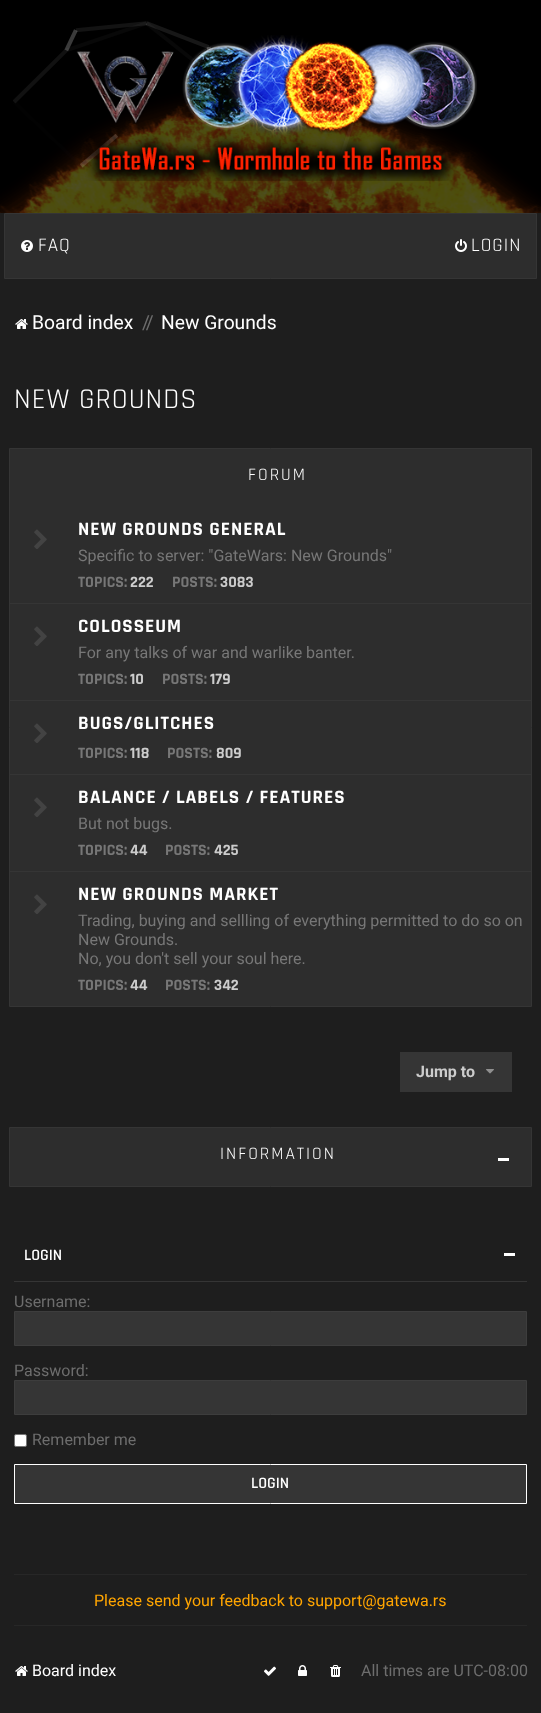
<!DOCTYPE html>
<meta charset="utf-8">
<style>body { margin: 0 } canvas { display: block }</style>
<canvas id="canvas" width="541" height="1713"></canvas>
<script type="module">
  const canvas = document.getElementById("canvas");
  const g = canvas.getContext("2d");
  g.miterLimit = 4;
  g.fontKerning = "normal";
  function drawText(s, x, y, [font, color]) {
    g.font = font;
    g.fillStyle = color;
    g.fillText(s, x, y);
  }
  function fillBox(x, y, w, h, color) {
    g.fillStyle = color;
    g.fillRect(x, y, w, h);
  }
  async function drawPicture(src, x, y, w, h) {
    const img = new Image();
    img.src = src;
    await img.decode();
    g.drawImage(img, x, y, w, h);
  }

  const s1 = ["19.25px Rajdhani", "#FFFFFF"];
  const s2 = ["19.25px Roboto", "#FFFFFF"];
  const s3 = ["19.25px Roboto", "#6D6D6D"];
  const s4 = ["28.75px Rajdhani", "#FFFFFF"];
  const s5 = ["17.5px Rajdhani", "#FFFFFF"];
  const s6 = ["bold 19.25px Rajdhani", "#FFFFFF"];
  const s7 = ["16px Roboto", "#777777"];
  const s8 = ["bold 16px Rajdhani", "#777777"];
  const s9 = ["bold 16px Rajdhani", "#CCCCCC"];
  const s10 = ["bold 16px Roboto", "#CCCCCC"];
  const s11 = ["600 16px Rajdhani", "#FFFFFF"];
  const s12 = ["16px Roboto", "#6D6D6D"];
  const s13 = ["16px Roboto", "#FFA500"];
  const s14 = ["16px Roboto", "#FFFFFF"];

  fillBox(0, 0, 541, 1713, "#1E1E1E");
  fillBox(0, 0, 541, 213, "#000000");
  await drawPicture("pic3.png", 0, 91, 541, 122);
  await drawPicture("pic1.png", 13, 21, 341, 179);
  await drawPicture("pic2.png", 76, 35, 401, 146);
  g.fillStyle = "#2D2D2D";
  g.beginPath();
  g.rect(4.5, 213.5, 532, 65);
  g.fill();
  g.strokeStyle = "#353535";
  g.stroke();
  await drawPicture("pic4.png", 21, 240, 12, 12);
  g.letterSpacing = "1px";
  drawText("FAQ", 38, 251, s1);
  await drawPicture("pic5.png", 455, 239, 12, 13);
  drawText("LOGIN", 471, 251, s1);
  await drawPicture("pic6.png", 15, 319, 13, 10);
  g.letterSpacing = "0px";
  drawText("Board index", 32, 329, s2);
  g.letterSpacing = "-2px";
  drawText("//", 142, 329, s3);
  g.letterSpacing = "0px";
  drawText("New Grounds", 161, 329, s2);
  g.letterSpacing = "1px";
  drawText("NEW GROUNDS", 14, 408, s4);
  g.fillStyle = "#2D2D2D";
  g.beginPath();
  g.rect(9.5, 448.5, 522, 558);
  g.fill();
  g.stroke();
  g.letterSpacing = "2px";
  drawText("FORUM", 248, 480, s5);
  fillBox(10, 603, 521, 1, "#353535");
  await drawPicture("pic7.png", 34, 529, 13, 20);
  g.letterSpacing = "1px";
  drawText("NEW GROUNDS GENERAL", 78, 535, s6);
  g.letterSpacing = "0px";
  drawText("Specific to server: \"GateWars: New Grounds\"", 78, 561, s7);
  drawText("TOPICS:", 78, 587, s8);
  drawText("222", 130, 587, s9);
  drawText("POSTS:", 172, 587, s8);
  drawText("3083", 220, 587, s9);
  fillBox(10, 700, 521, 1, "#353535");
  await drawPicture("pic7.png", 34, 626, 13, 20);
  g.letterSpacing = "1px";
  drawText("COLOSSEUM", 78, 632, s6);
  g.letterSpacing = "0px";
  drawText("For any talks of war and warlike banter.", 78, 658, s7);
  drawText("TOPICS:", 78, 684, s8);
  drawText("10", 130, 684, s9);
  drawText("POSTS:", 162, 684, s8);
  drawText("179", 210, 684, s9);
  fillBox(10, 774, 521, 1, "#353535");
  await drawPicture("pic7.png", 34, 723, 13, 20);
  g.letterSpacing = "1px";
  drawText("BUGS/GLITCHES", 78, 729, s6);
  g.letterSpacing = "0px";
  drawText("TOPICS:", 78, 758, s8);
  drawText("118", 130, 758, s9);
  drawText("POSTS:", 167, 758, s8);
  drawText("809", 216, 758, s9);
  fillBox(10, 871, 521, 1, "#353535");
  await drawPicture("pic7.png", 34, 797, 13, 20);
  g.letterSpacing = "1px";
  drawText("BALANCE / LABELS / FEATURES", 78, 803, s6);
  g.letterSpacing = "0px";
  drawText("But not bugs.", 78, 829, s7);
  drawText("TOPICS:", 78, 855, s8);
  drawText("44", 130, 855, s9);
  drawText("POSTS:", 165, 855, s8);
  drawText("425", 214, 855, s9);
  await drawPicture("pic7.png", 34, 894, 13, 20);
  g.letterSpacing = "1px";
  drawText("NEW GROUNDS MARKET", 78, 900, s6);
  g.letterSpacing = "0px";
  drawText("Trading, buying and sellling of everything permitted to do so on", 78, 926, s7);
  drawText("New Grounds.", 78, 945, s7);
  drawText("No, you don't sell your soul here.", 78, 964, s7);
  drawText("TOPICS:", 78, 990, s8);
  drawText("44", 130, 990, s9);
  drawText("POSTS:", 165, 990, s8);
  drawText("342", 214, 990, s9);
  fillBox(400, 1052, 112, 40, "#353535");
  drawText("Jump to", 416, 1077, s10);
  await drawPicture("pic8.png", 486, 1069, 8, 5);
  g.fillStyle = "#2D2D2D";
  g.beginPath();
  g.rect(9.5, 1127.5, 522, 59);
  g.fill();
  g.stroke();
  g.letterSpacing = "2px";
  drawText("INFORMATION", 220, 1159, s5);
  fillBox(498, 1158, 11, 3, "#FFFFFF");
  g.letterSpacing = "0px";
  drawText("LOGIN", 24, 1260, s11);
  fillBox(504, 1253, 11, 3, "#FFFFFF");
  fillBox(14, 1281, 513, 1, "#353535");
  drawText("Username:", 14, 1307, s12);
  g.fillStyle = "#353535";
  g.beginPath();
  g.rect(14.5, 1311.5, 512, 34);
  g.fill();
  g.strokeStyle = "#3D3D3D";
  g.stroke();
  drawText("Password:", 14, 1376, s12);
  g.fillStyle = "#353535";
  g.beginPath();
  g.rect(14.5, 1380.5, 512, 34);
  g.fill();
  g.stroke();
  g.fillStyle = "#FFFFFF";
  g.beginPath();
  g.roundRect(14.5, 1434.5, 12, 12, 1.5);
  g.fill();
  g.strokeStyle = "#767676";
  g.stroke();
  drawText("Remember me", 32, 1445, s12);
  g.fillStyle = "#353535";
  g.beginPath();
  g.rect(14.5, 1464.5, 512, 39);
  g.fill();
  g.strokeStyle = "#FFFFFF";
  g.stroke();
  drawText("LOGIN", 251, 1488, s11);
  fillBox(14, 1574, 513, 1, "#272727");
  drawText("Please send your feedback to support@gatewa.rs", 94, 1606, s13);
  fillBox(14, 1625, 513, 1, "#272727");
  await drawPicture("pic6.png", 15, 1666, 13, 10);
  drawText("Board index", 32, 1676, s14);
  await drawPicture("pic9.png", 264, 1666, 12, 10);
  await drawPicture("pic10.png", 298, 1665, 9, 11);
  await drawPicture("pic11.png", 330, 1665, 11, 12);
  drawText("All times are UTC-08:00", 361, 1676, s12);
</script>
